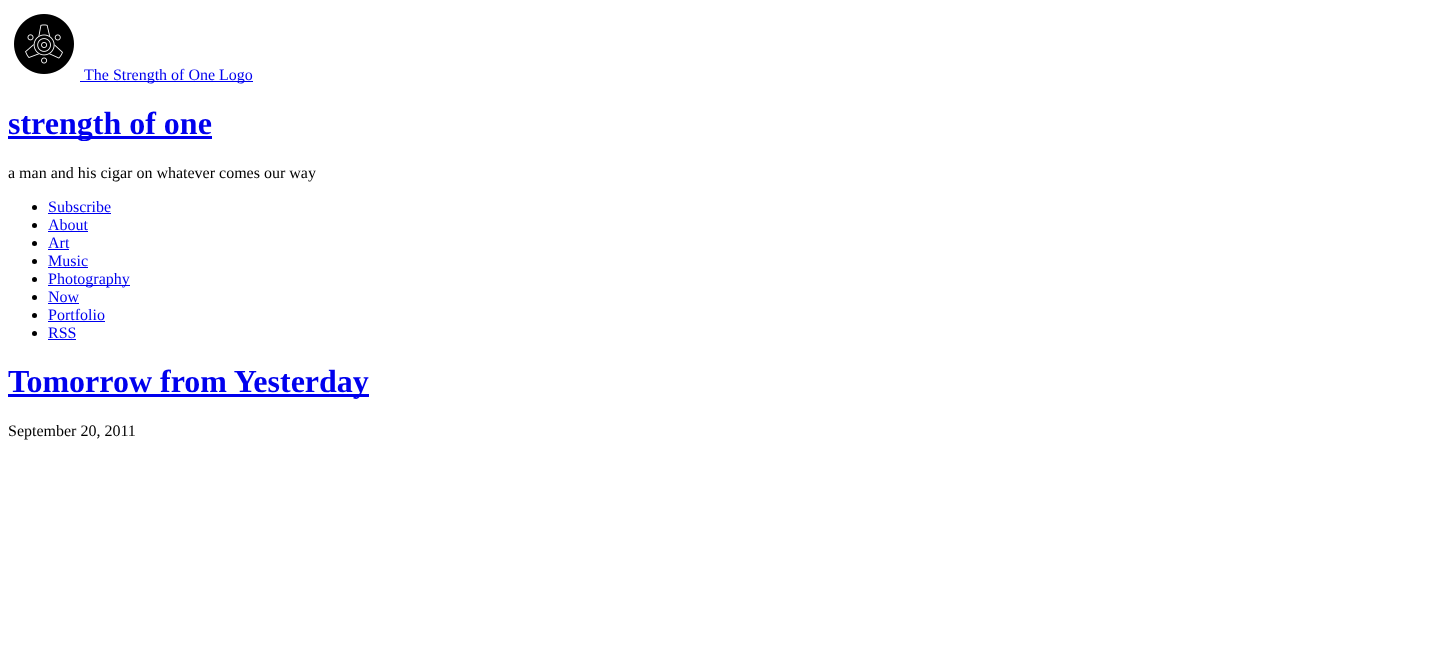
<!DOCTYPE html>
<meta charset="utf-8">
<style>body { margin: 0 } canvas { display: block }</style>
<canvas id="canvas" width="1454" height="648"></canvas>
<script type="module">
  const canvas = document.getElementById("canvas");
  const g = canvas.getContext("2d");
  g.miterLimit = 4;
  g.fontKerning = "normal";
  function drawText(s, x, y, [font, color]) {
    g.font = font;
    g.fillStyle = color;
    g.fillText(s, x, y);
  }
  function fillBox(x, y, w, h, color) {
    g.fillStyle = color;
    g.fillRect(x, y, w, h);
  }
  async function drawPicture(src, x, y, w, h) {
    const img = new Image();
    img.src = src;
    await img.decode();
    g.drawImage(img, x, y, w, h);
  }

  const s1 = ["16px Liberation Serif", "#0000EE"];
  const s2 = ["bold 32px Liberation Serif", "#0000EE"];
  const s3 = ["16px Liberation Serif", "#000000"];

  fillBox(0, 0, 1454, 648, "#FFFFFF");
  await drawPicture("pic1.png", 14, 14, 60, 60);
  fillBox(80, 81, 173, 1, "#0000EE");
  drawText("The Strength of One Logo", 84, 80, s1);
  fillBox(8, 136, 204, 3, "#0000EE");
  drawText("strength of one", 8, 134, s2);
  drawText("a man and his cigar on whatever comes our way", 8, 178, s3);
  g.beginPath();
  g.arc(34.5, 207.5, 2.5, 0, Math.PI * 2);
  g.fill();
  drawText("Subscribe", 48, 212, s1);
  fillBox(48, 213, 63, 1, "#0000EE");
  g.fillStyle = "#000000";
  g.beginPath();
  g.arc(34.5, 225.5, 2.5, 0, Math.PI * 2);
  g.fill();
  drawText("About", 48, 230, s1);
  fillBox(48, 231, 40, 1, "#0000EE");
  g.fillStyle = "#000000";
  g.beginPath();
  g.arc(34.5, 243.5, 2.5, 0, Math.PI * 2);
  g.fill();
  drawText("Art", 48, 248, s1);
  fillBox(48, 249, 21, 1, "#0000EE");
  g.fillStyle = "#000000";
  g.beginPath();
  g.arc(34.5, 261.5, 2.5, 0, Math.PI * 2);
  g.fill();
  drawText("Music", 48, 266, s1);
  fillBox(48, 267, 40, 1, "#0000EE");
  g.fillStyle = "#000000";
  g.beginPath();
  g.arc(34.5, 279.5, 2.5, 0, Math.PI * 2);
  g.fill();
  fillBox(48, 285, 82, 1, "#0000EE");
  drawText("Photography", 48, 284, s1);
  g.fillStyle = "#000000";
  g.beginPath();
  g.arc(34.5, 297.5, 2.5, 0, Math.PI * 2);
  g.fill();
  drawText("Now", 48, 302, s1);
  fillBox(48, 303, 31, 1, "#0000EE");
  g.fillStyle = "#000000";
  g.beginPath();
  g.arc(34.5, 315.5, 2.5, 0, Math.PI * 2);
  g.fill();
  drawText("Portfolio", 48, 320, s1);
  fillBox(48, 321, 57, 1, "#0000EE");
  g.fillStyle = "#000000";
  g.beginPath();
  g.arc(34.5, 333.5, 2.5, 0, Math.PI * 2);
  g.fill();
  drawText("RSS", 48, 338, s1);
  fillBox(48, 339, 28, 1, "#0000EE");
  fillBox(8, 394, 361, 3, "#0000EE");
  drawText("Tomorrow from Yesterday", 8, 392, s2);
  drawText("September 20, 2011", 8, 436, s3);
</script>
